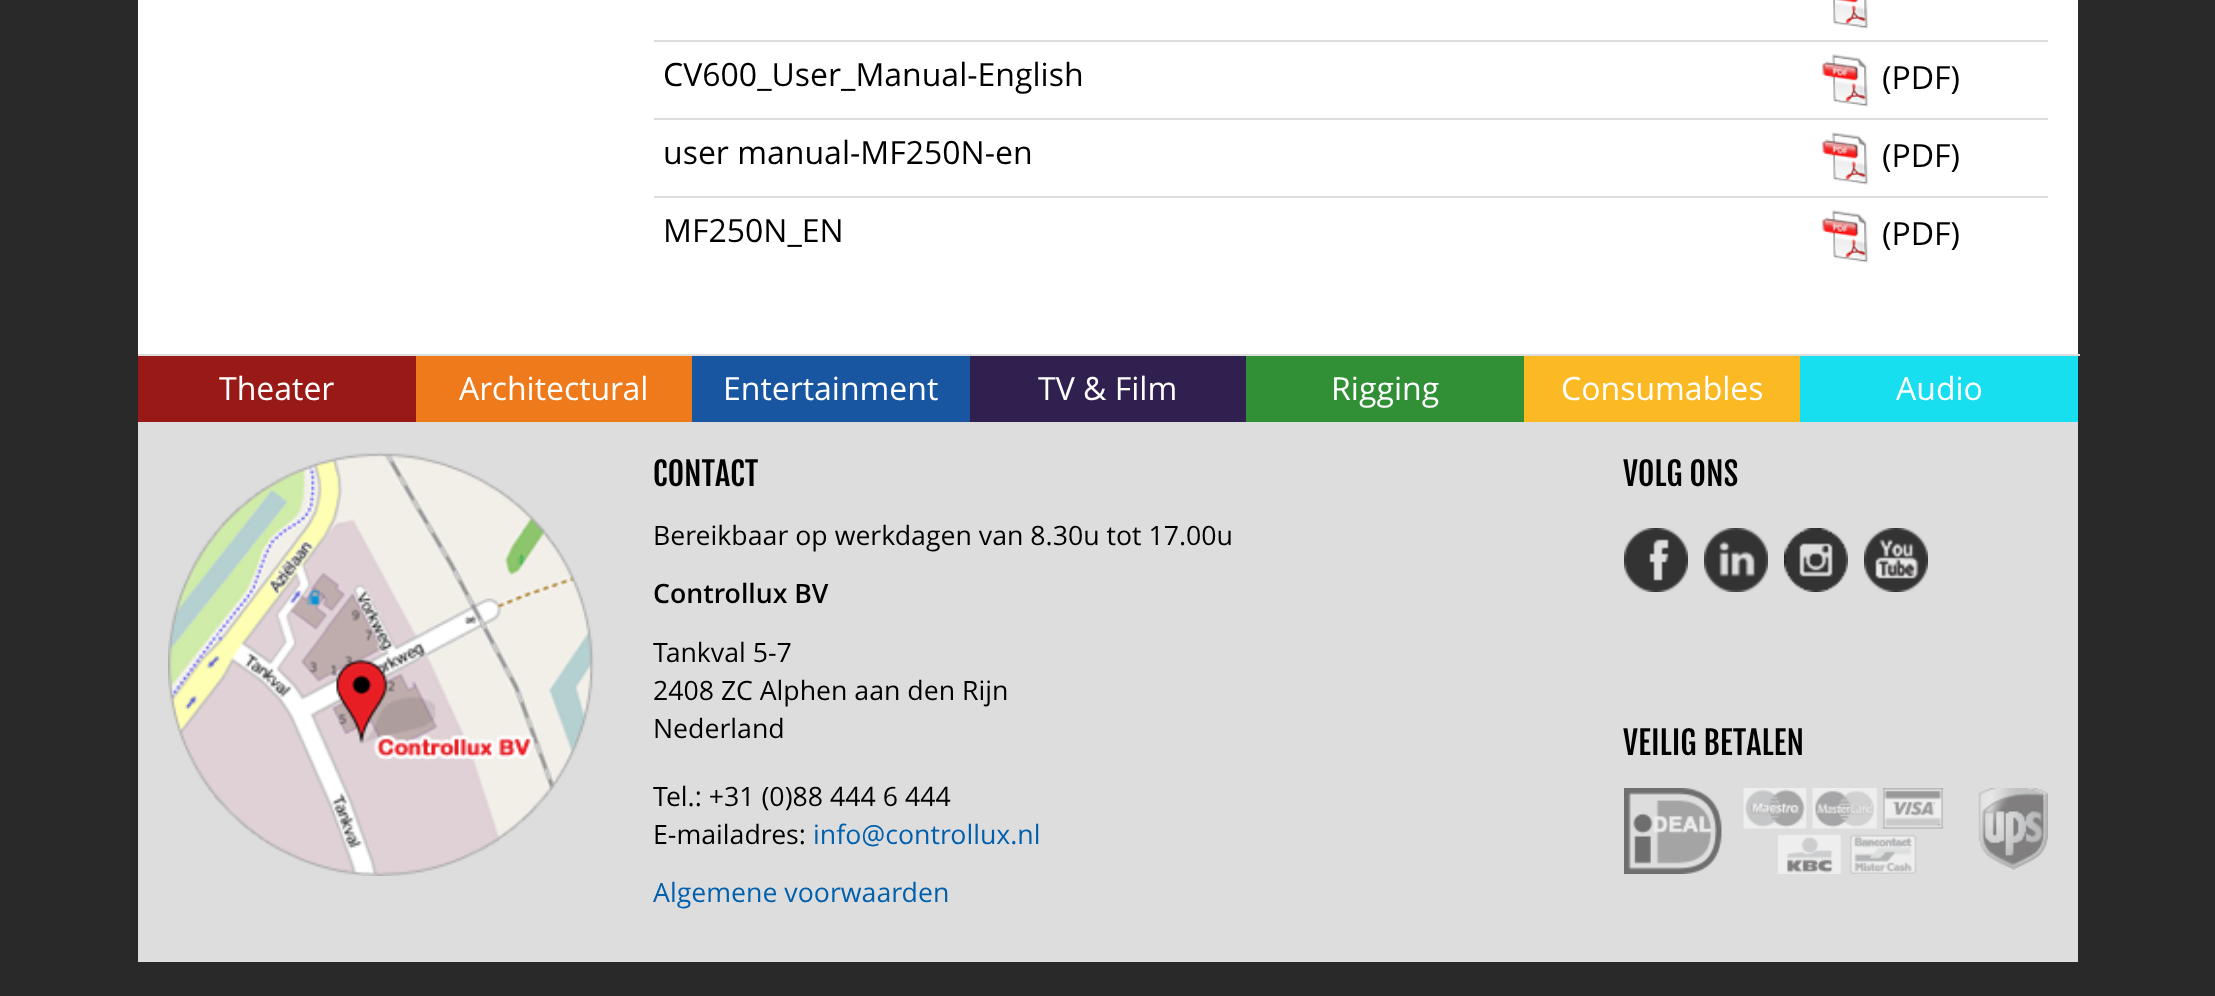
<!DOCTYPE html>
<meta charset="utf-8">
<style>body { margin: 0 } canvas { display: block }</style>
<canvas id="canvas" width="2215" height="996"></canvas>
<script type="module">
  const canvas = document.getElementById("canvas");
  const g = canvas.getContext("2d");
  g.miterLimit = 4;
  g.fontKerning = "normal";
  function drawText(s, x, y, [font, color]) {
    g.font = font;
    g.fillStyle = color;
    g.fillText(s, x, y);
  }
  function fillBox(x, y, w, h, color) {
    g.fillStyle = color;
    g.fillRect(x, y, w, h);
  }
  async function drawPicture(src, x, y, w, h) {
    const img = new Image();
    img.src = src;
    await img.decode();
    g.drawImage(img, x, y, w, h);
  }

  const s1 = ["32px Open Sans", "#000000"];
  const s2 = ["32px Open Sans", "#FFFFFF"];
  const s3 = ["32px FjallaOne", "#000000"];
  const s4 = ["26.7px Open Sans", "#000000"];
  const s5 = ["600 26.7px Open Sans", "#000000"];
  const s6 = ["26.7px Open Sans", "#0060AD"];

  fillBox(0, 0, 2215, 996, "#292929");
  fillBox(138, 0, 1940, 354, "#FFFFFF");
  await drawPicture("pic1.png", 1833, 0, 36, 29);
  drawText("CV600_User_Manual-English", 663, 86, s1);
  fillBox(654, 40, 1394, 2, "#DDDDDD");
  await drawPicture("pic2.png", 1822, 54, 47, 53);
  drawText("(PDF)", 1882, 89, s1);
  drawText("user manual-MF250N-en", 663, 164, s1);
  fillBox(654, 118, 1394, 2, "#DDDDDD");
  await drawPicture("pic2.png", 1822, 132, 47, 53);
  drawText("(PDF)", 1882, 167, s1);
  drawText("MF250N_EN", 663, 242, s1);
  fillBox(654, 196, 1394, 2, "#DDDDDD");
  await drawPicture("pic2.png", 1822, 210, 47, 53);
  drawText("(PDF)", 1882, 245, s1);
  fillBox(138, 356, 278, 66, "#991916");
  drawText("Theater", 219, 400, s2);
  fillBox(416, 356, 276, 66, "#EF7A1B");
  drawText("Architectural", 459, 400, s2);
  fillBox(692, 356, 278, 66, "#1856A1");
  drawText("Entertainment", 723, 400, s2);
  fillBox(970, 356, 276, 66, "#30204F");
  drawText("TV & Film", 1038, 400, s2);
  fillBox(1246, 356, 278, 66, "#319036");
  drawText("Rigging", 1331, 400, s2);
  fillBox(1524, 356, 276, 66, "#FBB924");
  drawText("Consumables", 1561, 400, s2);
  fillBox(1800, 356, 278, 66, "#18DFEF");
  fillBox(138, 354, 1942, 2, "#DDDDDD");
  drawText("Audio", 1896, 400, s2);
  fillBox(138, 422, 1940, 540, "#DDDDDD");
  await drawPicture("pic3.png", 168, 452, 426, 424);
  drawText("CONTACT", 653, 486, s3);
  drawText("Bereikbaar op werkdagen van 8.30u tot 17.00u", 653, 545, s4);
  drawText("Controllux BV", 653, 603, s5);
  drawText("Tankval 5-7", 653, 662, s4);
  drawText("2408 ZC Alphen aan den Rijn", 653, 700, s4);
  drawText("Nederland", 653, 738, s4);
  drawText("Tel.: +31 (0)88 444 6 444", 653, 806, s4);
  drawText("E-mailadres:", 653, 844, s4);
  drawText("info@controllux.nl", 813, 844, s6);
  drawText("Algemene voorwaarden", 653, 902, s6);
  drawText("VOLG ONS", 1623, 486, s3);
  await drawPicture("pic4.png", 1624, 528, 64, 64);
  await drawPicture("pic5.png", 1704, 528, 64, 64);
  await drawPicture("pic6.png", 1784, 528, 64, 64);
  await drawPicture("pic7.png", 1864, 528, 64, 64);
  drawText("VEILIG BETALEN", 1623, 755, s3);
  await drawPicture("pic8.png", 1624, 788, 424, 86);
</script>
